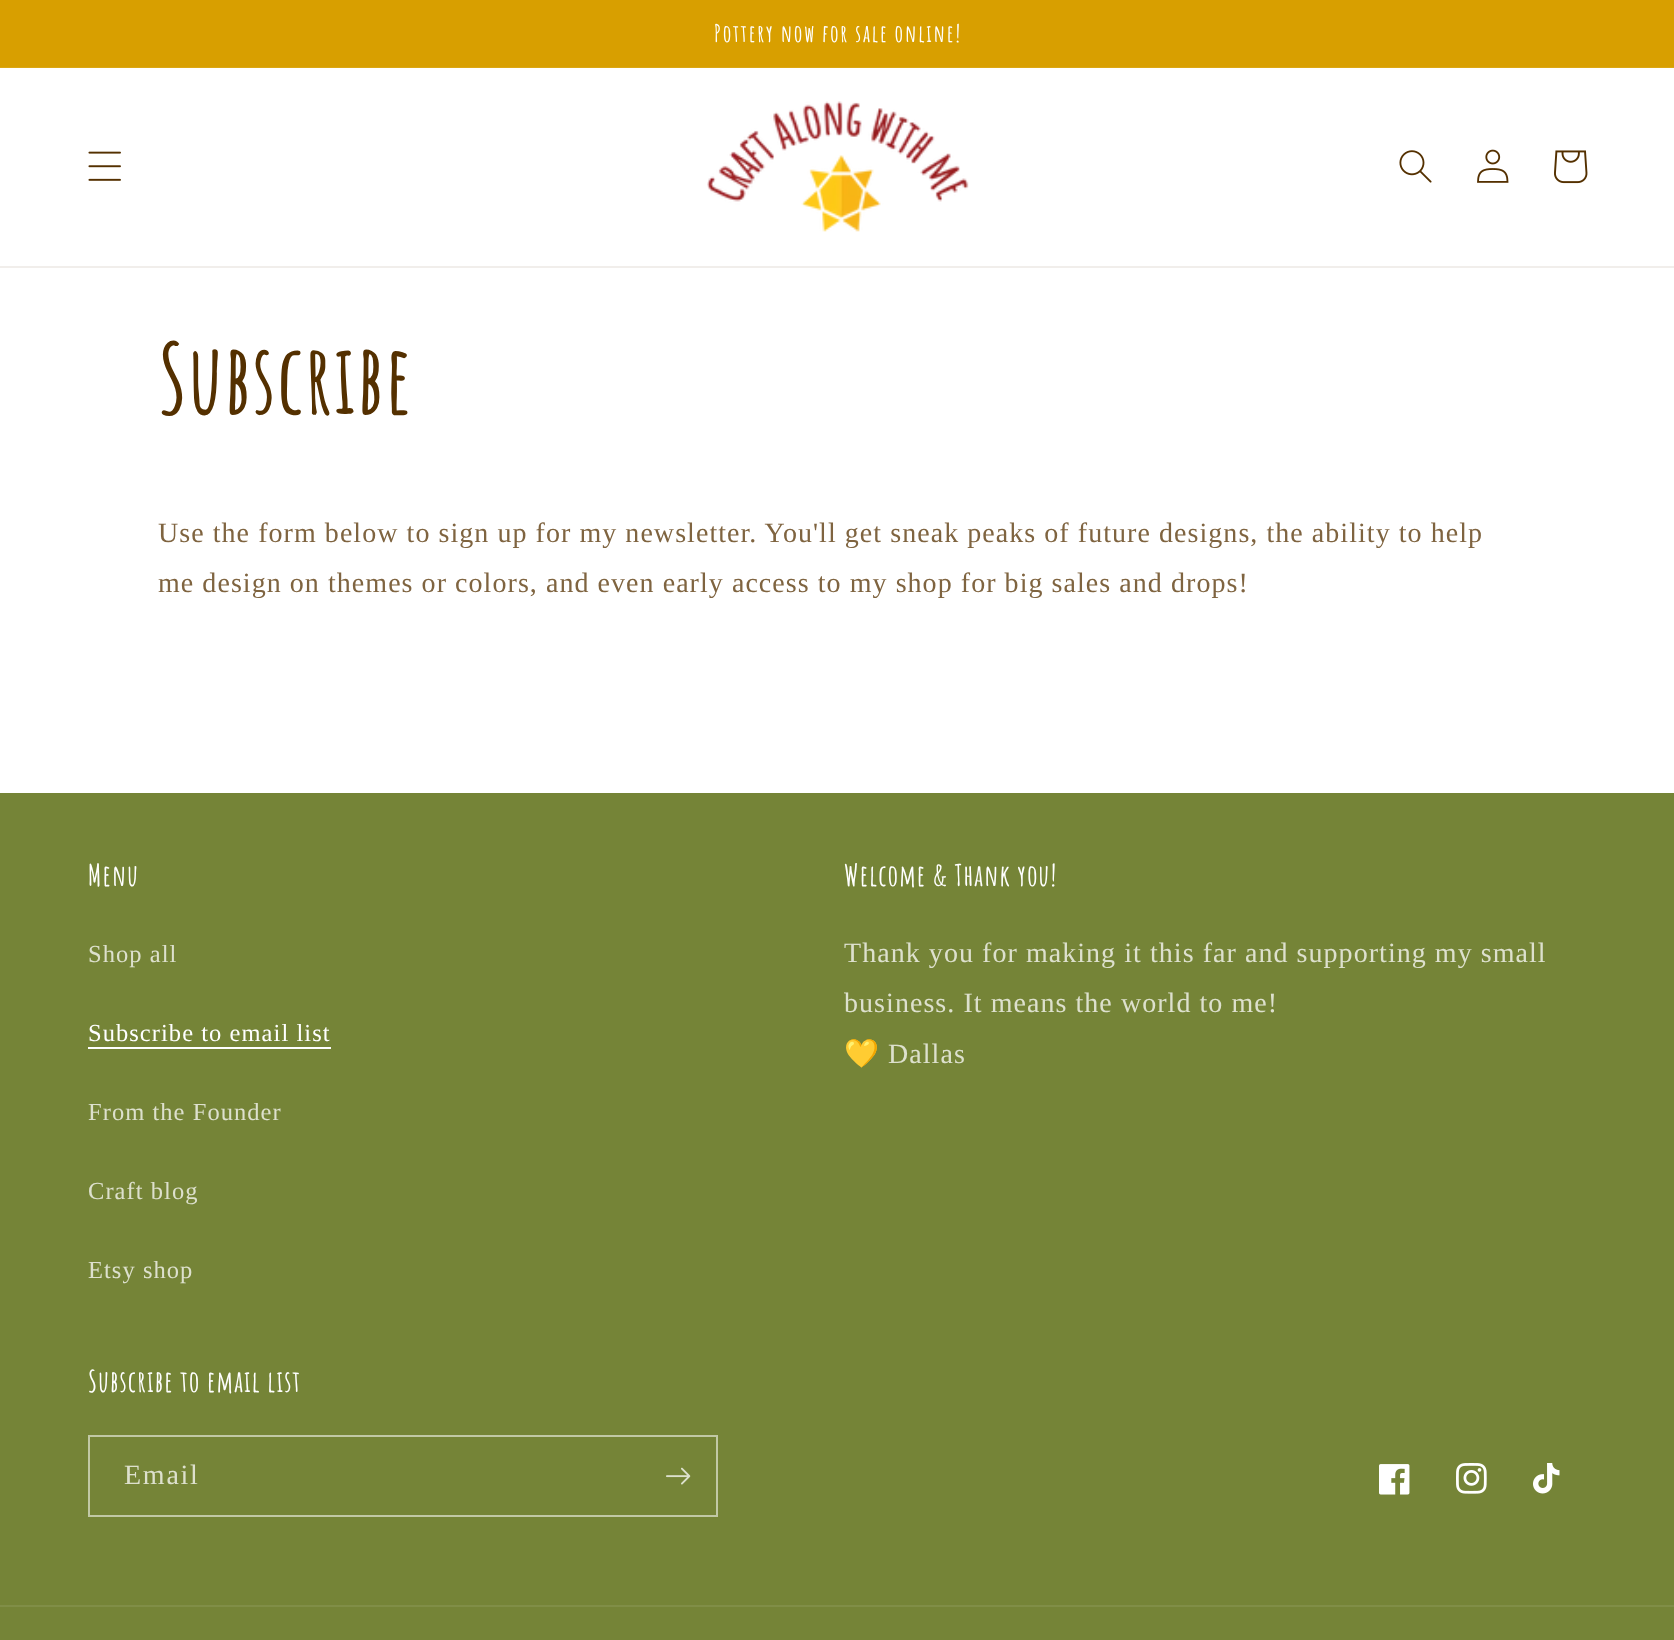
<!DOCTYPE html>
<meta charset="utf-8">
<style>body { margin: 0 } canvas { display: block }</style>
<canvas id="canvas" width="1674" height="1640"></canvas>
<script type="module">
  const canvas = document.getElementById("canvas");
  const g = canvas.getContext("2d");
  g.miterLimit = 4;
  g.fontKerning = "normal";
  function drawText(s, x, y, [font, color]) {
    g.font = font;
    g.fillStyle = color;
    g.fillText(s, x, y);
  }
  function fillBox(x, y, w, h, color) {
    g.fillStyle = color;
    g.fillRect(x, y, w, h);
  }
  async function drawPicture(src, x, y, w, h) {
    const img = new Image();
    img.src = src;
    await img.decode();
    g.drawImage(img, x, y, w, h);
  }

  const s1 = ["bold 23.9px Amatic SC", "#FFFFFF"];
  const s2 = ["bold 95.5px Amatic SC", "#543000"];
  const s3 = ["28px Liberation Serif", "#7F6440"];
  const s4 = ["bold 29.5px Amatic SC", "#FFFFFF"];
  const s5 = ["24.5px Liberation Serif", "#DDE0CD"];
  const s6 = ["24.5px Liberation Serif", "#FFFFFF"];
  const s7 = ["28px Liberation Serif", "#DDE0CD"];
  const s8 = ["28px Noto Color Emoji", "#DDE0CD"];

  fillBox(0, 0, 1674, 1640, "#FFFFFF");
  fillBox(0, 0, 1674, 67, "#D89F00");
  fillBox(0, 67, 1674, 1, "#DBA714");
  g.letterSpacing = "1.75px";
  drawText("Pottery now for sale online!", 714, 42, s1);
  fillBox(0, 266, 1674, 2, "#F1EEEB");
  await drawPicture("pic1.png", 88, 151, 33, 30);
  await drawPicture("pic2.png", 707, 101, 262, 131);
  await drawPicture("pic3.png", 1399, 150, 33, 33);
  await drawPicture("pic4.png", 1477, 149, 32, 34);
  await drawPicture("pic5.png", 1554, 150, 34, 34);
  g.letterSpacing = "1.1px";
  drawText("Subscribe", 158, 414, s2);
  g.letterSpacing = "1.05px";
  drawText("Use the form below to sign up for my newsletter. You'll get sneak peaks of future designs, the ability to help", 158, 542, s3);
  drawText("me design on themes or colors, and even early access to my shop for big sales and drops!", 158, 592, s3);
  fillBox(0, 793, 1674, 847, "#758437");
  g.letterSpacing = "1.1px";
  drawText("Menu", 88, 886, s4);
  g.letterSpacing = "1.05px";
  drawText("Shop all", 88, 962, s5);
  drawText("Subscribe to email list", 88, 1041, s6);
  fillBox(88, 1047, 243, 2, "#FFFFFF");
  drawText("From the Founder", 88, 1120, s5);
  drawText("Craft blog", 88, 1199, s5);
  drawText("Etsy shop", 88, 1278, s5);
  g.letterSpacing = "1.1px";
  drawText("Welcome & Thank you!", 844, 886, s4);
  g.letterSpacing = "1.05px";
  drawText("Thank you for making it this far and supporting my small", 844, 962, s7);
  drawText("business. It means the world to me!", 844, 1012, s7);
  drawText("💛", 844, 1063, s8);
  drawText("Dallas", 888, 1063, s7);
  g.letterSpacing = "1.1px";
  drawText("Subscribe to email list", 88, 1392, s4);
  g.strokeStyle = "#C1C8A5";
  g.lineWidth = 2;
  g.strokeRect(89, 1436, 628, 80);
  g.letterSpacing = "1.75px";
  drawText("Email", 124, 1484, s7);
  await drawPicture("pic6.png", 666, 1467, 25, 18);
  await drawPicture("pic7.png", 1379, 1464, 31, 31);
  await drawPicture("pic8.png", 1456, 1463, 31, 31);
  await drawPicture("pic9.png", 1533, 1463, 27, 31);
  fillBox(0, 1605, 1674, 2, "#808E47");
</script>
